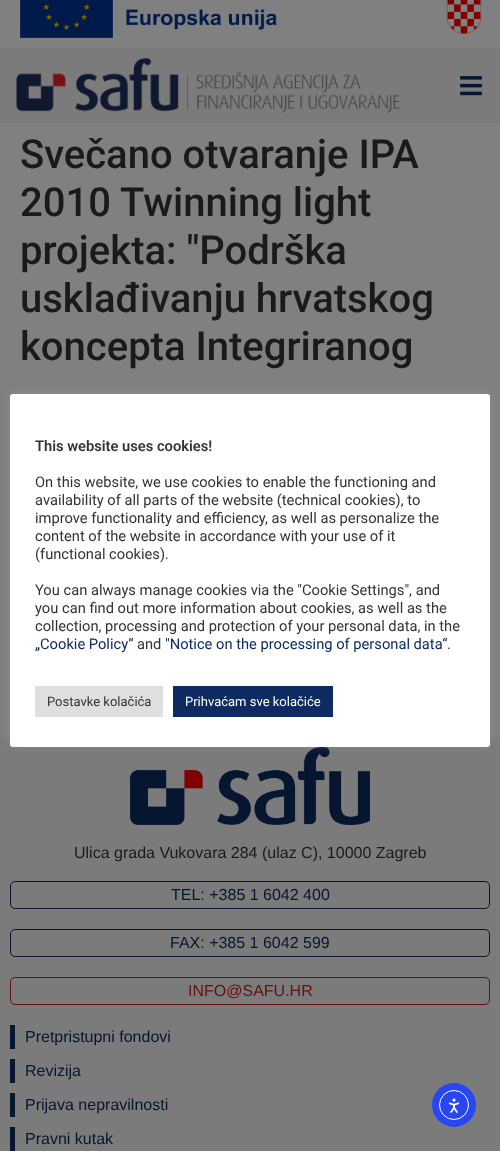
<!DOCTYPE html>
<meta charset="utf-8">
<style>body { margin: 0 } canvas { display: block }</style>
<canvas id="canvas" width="500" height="1151"></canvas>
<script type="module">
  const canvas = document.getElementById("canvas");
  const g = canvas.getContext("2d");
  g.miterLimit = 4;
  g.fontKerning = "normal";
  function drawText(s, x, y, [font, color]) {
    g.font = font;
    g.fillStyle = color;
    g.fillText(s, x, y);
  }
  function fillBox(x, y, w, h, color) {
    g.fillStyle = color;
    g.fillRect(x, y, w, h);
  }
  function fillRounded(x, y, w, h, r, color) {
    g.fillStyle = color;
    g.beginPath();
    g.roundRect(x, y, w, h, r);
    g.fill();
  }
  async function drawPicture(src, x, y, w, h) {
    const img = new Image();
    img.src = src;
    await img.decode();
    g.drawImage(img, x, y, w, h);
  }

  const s1 = ["500 40px Roboto", "#1A1A1A"];
  const s2 = ["600 14.7px Roboto", "#333333"];
  const s3 = ["14.7px Roboto", "#333333"];
  const s4 = ["14.7px Roboto", "#0D2B61"];
  const s5 = ["13px Roboto", "#333333"];
  const s6 = ["13px Roboto", "#FFFFFF"];
  const s7 = ["16px Liberation Sans", "#1A1A1A"];
  const s8 = ["16px Liberation Sans", "#071631"];
  const s9 = ["16px Liberation Sans", "#661010"];

  fillBox(0, 0, 500, 1151, "#808080");
  await drawPicture("pic1.png", 20, 0, 257, 38);
  await drawPicture("pic2.png", 446, 0, 36, 34);
  fillBox(0, 48, 500, 75, "#7B7B7B");
  await drawPicture("pic3.png", 16, 58, 384, 55);
  await drawPicture("pic4.png", 460, 76, 22, 20);
  drawText("Svečano otvaranje IPA", 20, 168, s1);
  drawText("2010 Twinning light", 20, 216, s1);
  drawText("projekta: \"Podrška", 20, 264, s1);
  drawText("usklađivanju hrvatskog", 20, 312, s1);
  drawText("koncepta Integriranog", 20, 360, s1);
  fillBox(0, 737, 500, 414, "#7B7B7B");
  await drawPicture("pic5.png", 130, 747, 240, 78);
  g.fillStyle = "rgba(172, 171, 171, 0.3)";
  g.filter = "blur(5px)";
  g.beginPath();
  g.roundRect(10, 393, 480, 353, 3);
  g.fill();
  g.filter = "none";
  fillRounded(10, 394, 480, 353, 3, "#FFFFFF");
  drawText("This website uses cookies!", 35, 451, s2);
  drawText("On this website, we use cookies to enable the functioning and", 35, 487, s3);
  drawText("availability of all parts of the website (technical cookies), to", 35, 505, s3);
  drawText("improve functionality and efficiency, as well as personalize the", 35, 523, s3);
  drawText("content of the website in accordance with your use of it", 35, 541, s3);
  drawText("(functional cookies).", 35, 559, s3);
  drawText("You can always manage cookies via the \"Cookie Settings\", and", 35, 595, s3);
  drawText("you can find out more information about cookies, as well as the", 35, 613, s3);
  drawText("collection, processing and protection of your personal data, in the", 35, 631, s3);
  drawText("„Cookie Policy“", 35, 649, s4);
  drawText("and", 137, 649, s3);
  drawText("\"Notice on the processing of personal data“", 165, 649, s4);
  drawText(".", 447, 649, s3);
  fillBox(35, 686, 128, 31, "#DEDFE0");
  drawText("Postavke kolačića", 47, 706, s5);
  fillBox(173, 686, 160, 31, "#0D2B61");
  drawText("Prihvaćam sve kolačiće", 185, 706, s6);
  drawText("Ulica grada Vukovara 284 (ulaz C), 10000 Zagreb", 74, 858, s7);
  g.beginPath();
  g.roundRect(10.5, 881.5, 479, 27, 4.5);
  g.strokeStyle = "#071631";
  g.stroke();
  drawText("TEL: +385 1 6042 400", 171, 900, s8);
  g.beginPath();
  g.roundRect(10.5, 929.5, 479, 27, 4.5);
  g.stroke();
  drawText("FAX: +385 1 6042 599", 170, 948, s8);
  g.beginPath();
  g.roundRect(10.5, 977.5, 479, 27, 4.5);
  g.strokeStyle = "#661010";
  g.stroke();
  drawText("INFO@SAFU.HR", 188, 996, s9);
  fillBox(10, 1025, 5, 24, "#071631");
  drawText("Pretpristupni fondovi", 25, 1042, s8);
  fillBox(10, 1059, 5, 24, "#071631");
  drawText("Revizija", 25, 1076, s8);
  fillBox(10, 1093, 5, 24, "#071631");
  drawText("Prijava nepravilnosti", 25, 1110, s8);
  fillBox(10, 1127, 5, 24, "#071631");
  drawText("Pravni kutak", 25, 1144, s8);
  g.fillStyle = "#2847F3";
  g.beginPath();
  g.arc(454, 1105, 22, 0, Math.PI * 2);
  g.fill();
  g.beginPath();
  g.arc(454, 1105, 14.5, 0, Math.PI * 2);
  g.strokeStyle = "#FFFFFF";
  g.stroke();
  await drawPicture("pic6.png", 448, 1098, 12, 15);
</script>
